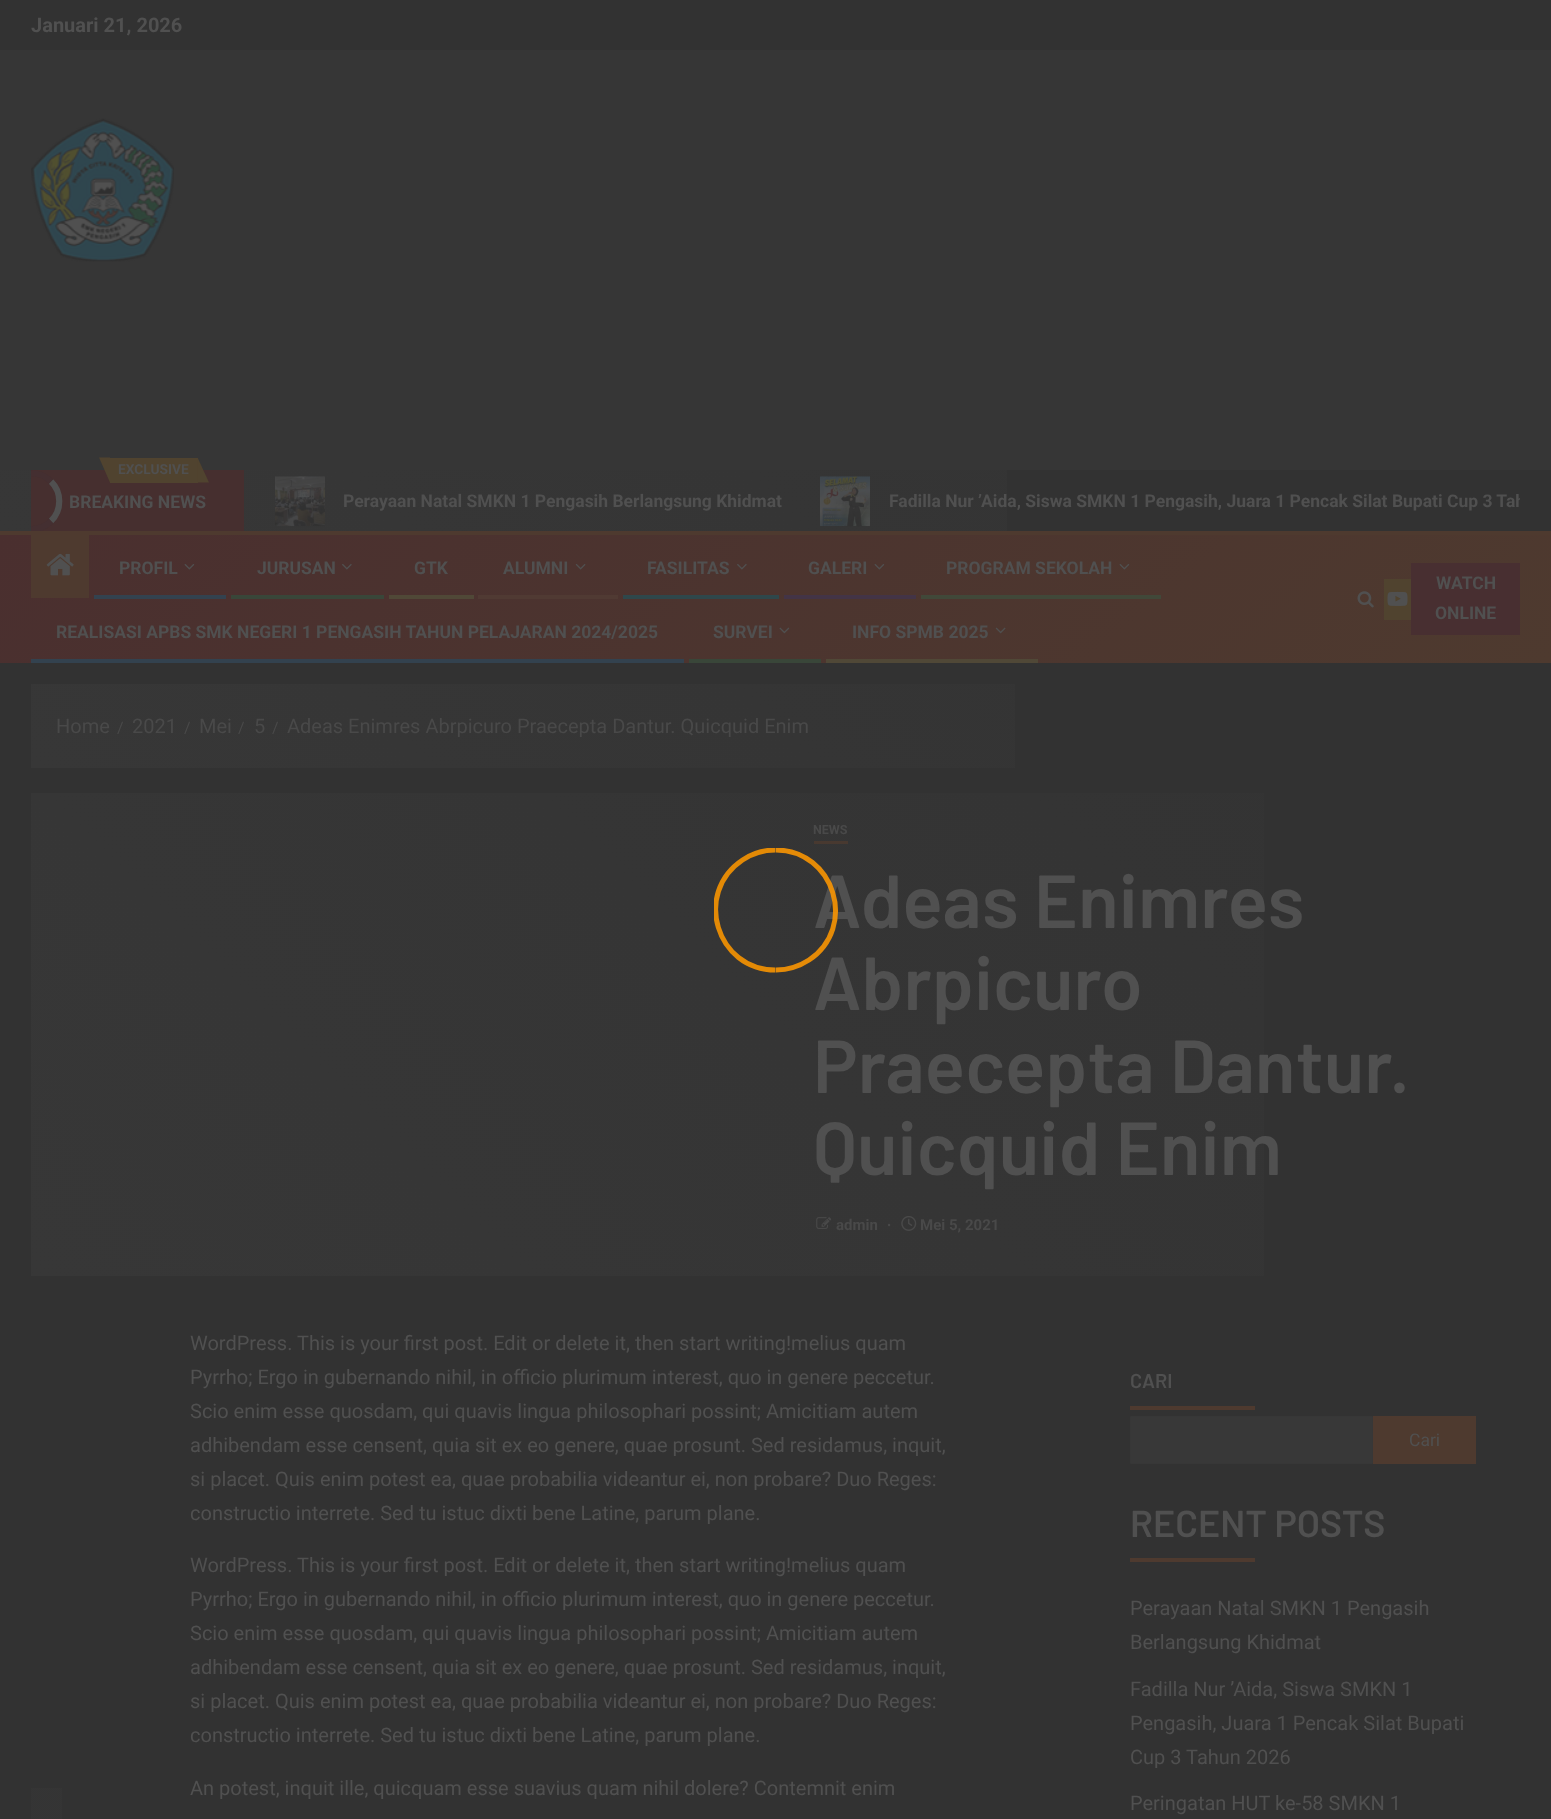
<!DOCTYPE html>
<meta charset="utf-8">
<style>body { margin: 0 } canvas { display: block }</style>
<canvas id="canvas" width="1551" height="1819"></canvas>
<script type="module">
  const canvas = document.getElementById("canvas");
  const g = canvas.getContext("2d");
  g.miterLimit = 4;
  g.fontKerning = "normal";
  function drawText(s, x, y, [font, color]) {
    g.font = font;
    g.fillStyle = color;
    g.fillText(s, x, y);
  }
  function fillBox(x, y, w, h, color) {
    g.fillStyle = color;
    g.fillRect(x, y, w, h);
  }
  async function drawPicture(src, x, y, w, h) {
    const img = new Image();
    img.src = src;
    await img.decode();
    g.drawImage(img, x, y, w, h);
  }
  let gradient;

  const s1 = ["bold 20px Roboto", "#505050"];
  const s2 = ["bold 13.75px Roboto", "#505050"];
  const s3 = ["bold 17.5px Roboto", "#505050"];
  const s4 = ["20px Roboto", "#494949"];
  const s5 = ["16px Roboto", "#494949"];
  const s6 = ["bold 12.5px Roboto", "#494949"];
  const s7 = ["600 75px Barlow", "#505050"];
  const s8 = ["bold 15px Roboto", "#494949"];
  const s9 = ["bold 15px Liberation Sans", "#494949"];
  const s10 = ["20px Roboto", "#505050"];
  const s11 = ["600 20px Barlow", "#505050"];
  const s12 = ["17.5px Roboto", "#505050"];
  const s13 = ["600 37.5px Barlow", "#505050"];

  fillBox(0, 0, 1551, 1819, "#323232");
  fillBox(0, 50, 1551, 420, "#363636");
  drawText("Januari 21, 2026", 31, 32, s1);
  await drawPicture("pic1.png", 31, 118, 143, 144);
  gradient = g.createLinearGradient(373, 904, 1179, 98);
  gradient.addColorStop(0, "#373737");
  gradient.addColorStop(1, "#333333");
  g.fillStyle = gradient;
  g.fillRect(0, 470, 1007, 61);
  fillBox(31, 470, 213, 61, "#462F2F");
  fillBox(110, 458, 88, 25, "#50432F");
  g.beginPath();
  g.moveTo(99, 457.5);
  g.lineTo(110, 457.5);
  g.lineTo(110, 482.5);
  g.closePath();
  g.fill();
  drawText("EXCLUSIVE", 118, 474, s2);
  g.fillStyle = "#50432F";
  g.beginPath();
  g.moveTo(209, 482.5);
  g.lineTo(197.5, 482.5);
  g.lineTo(197.5, 457.5);
  g.closePath();
  g.fill();
  g.beginPath();
  g.moveTo(51, 481.5);
  g.bezierCurveTo(62, 492, 62, 510.5, 51, 521);
  g.strokeStyle = "#505050";
  g.lineWidth = 6.2;
  g.stroke();
  g.save();
  g.beginPath();
  g.rect(31, 470, 213, 61);
  g.clip();
  g.beginPath();
  g.moveTo(11.5, 481.5);
  g.bezierCurveTo(22, 470.5, 40.5, 470.5, 51, 481.5);
  g.moveTo(51, 521);
  g.bezierCurveTo(40.5, 532, 22, 532, 11.5, 521);
  g.strokeStyle = "#442F31";
  g.stroke();
  g.restore();
  drawText("BREAKING NEWS", 69, 508, s3);
  await drawPicture("pic2.png", 275, 476, 50, 51);
  drawText("Perayaan Natal SMKN 1 Pengasih Berlangsung Khidmat", 343, 507, s3);
  await drawPicture("pic3.png", 820, 476, 50, 51);
  g.save();
  g.beginPath();
  g.rect(250, 476, 1270, 50);
  g.clip();
  drawText("Fadilla Nur ’Aida, Siswa SMKN 1 Pengasih, Juara 1 Pencak Silat Bupati Cup 3 Tah", 889, 507, s3);
  g.restore();
  gradient = g.createLinearGradient(424, 179, 1127, 1018);
  gradient.addColorStop(0, "#4A2F2F");
  gradient.addColorStop(1, "#4E3A2F");
  g.fillStyle = gradient;
  g.fillRect(0, 535, 1551, 128);
  fillBox(0, 531, 1551, 4, "#4E3A2F");
  fillBox(31, 535, 58, 63, "#4E3A2F");
  await drawPicture("pic4.png", 46, 553, 28, 23);
  drawText("PROFIL", 119, 574, s3);
  await drawPicture("pic5.png", 184, 563, 11, 7);
  fillBox(94, 595, 132, 4, "#33424F");
  drawText("JURUSAN", 257, 574, s3);
  await drawPicture("pic6.png", 342, 563, 10, 7);
  fillBox(231, 595, 153, 4, "#394639");
  drawText("GTK", 414, 574, s3);
  fillBox(389, 595, 85, 4, "#504837");
  drawText("ALUMNI", 503, 574, s3);
  await drawPicture("pic7.png", 575, 563, 11, 7);
  fillBox(478, 595, 140, 4, "#503A33");
  drawText("FASILITAS", 647, 574, s3);
  await drawPicture("pic8.png", 737, 563, 10, 7);
  fillBox(623, 595, 156, 4, "#2F474B");
  drawText("GALERI", 808, 574, s3);
  await drawPicture("pic9.png", 874, 563, 11, 7);
  fillBox(784, 595, 132, 4, "#433446");
  drawText("PROGRAM SEKOLAH", 946, 574, s3);
  await drawPicture("pic10.png", 1119, 563, 11, 7);
  fillBox(921, 595, 240, 4, "#414839");
  drawText("REALISASI APBS SMK NEGERI 1 PENGASIH TAHUN PELAJARAN 2024/2025", 56, 638, s3);
  fillBox(31, 659, 653, 4, "#33424F");
  drawText("SURVEI", 713, 638, s3);
  await drawPicture("pic11.png", 779, 627, 11, 7);
  fillBox(689, 659, 132, 4, "#394639");
  drawText("INFO SPMB 2025", 852, 638, s3);
  await drawPicture("pic12.png", 995, 627, 11, 7);
  fillBox(826, 659, 212, 4, "#504837");
  await drawPicture("pic13.png", 1357, 591, 17, 17);
  fillBox(1384, 579, 27, 41, "#50432F");
  await drawPicture("pic14.png", 1387, 591, 21, 15);
  fillBox(1411, 563, 109, 72, "#482F31");
  drawText("WATCH", 1436, 589, s3);
  drawText("ONLINE", 1435, 619, s3);
  gradient = g.createLinearGradient(383, 1119, 1169, 332);
  gradient.addColorStop(0, "#373737");
  gradient.addColorStop(1, "#333333");
  g.fillStyle = gradient;
  g.fillRect(31, 684, 984, 84);
  drawText("Home", 56, 733, s4);
  drawText("/", 117, 733, s5);
  drawText("2021", 132, 733, s4);
  drawText("/", 184, 733, s5);
  drawText("Mei", 199, 733, s4);
  drawText("/", 238, 733, s5);
  drawText("5", 254, 733, s4);
  drawText("/", 272, 733, s5);
  drawText("Adeas Enimres Abrpicuro Praecepta Dantur. Quicquid Enim", 287, 733, s4);
  gradient = g.createLinearGradient(283, 1528, 1269, 541);
  gradient.addColorStop(0, "#373737");
  gradient.addColorStop(1, "#333333");
  g.fillStyle = gradient;
  g.fillRect(31, 793, 1233, 483);
  fillBox(814, 841, 34, 3, "#483930");
  drawText("NEWS", 813, 834, s6);
  drawText("Adeas Enimres", 813, 928, s7);
  drawText("Abrpicuro", 813, 1010, s7);
  drawText("Praecepta Dantur.", 813, 1093, s7);
  drawText("Quicquid Enim", 813, 1175, s7);
  await drawPicture("pic15.png", 816, 1217, 16, 12);
  drawText("admin", 836, 1230, s8);
  drawText("∙", 887, 1230, s9);
  await drawPicture("pic16.png", 901, 1215, 16, 16);
  drawText("Mei 5, 2021", 920, 1230, s8);
  gradient = g.createLinearGradient(-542, 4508, 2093, 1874);
  gradient.addColorStop(0, "#373737");
  gradient.addColorStop(1, "#333333");
  g.fillStyle = gradient;
  g.fillRect(31, 1788, 31, 31);
  drawText("WordPress. This is your first post. Edit or delete it, then start writing!melius quam", 190, 1350, s10);
  drawText("Pyrrho; Ergo in gubernando nihil, in officio plurimum interest, quo in genere peccetur.", 190, 1384, s10);
  drawText("Scio enim esse quosdam, qui quavis lingua philosophari possint; Amicitiam autem", 190, 1418, s10);
  drawText("adhibendam esse censent, quia sit ex eo genere, quae prosunt. Sed residamus, inquit,", 190, 1452, s10);
  drawText("si placet. Quis enim potest ea, quae probabilia videantur ei, non probare? Duo Reges:", 190, 1486, s10);
  drawText("constructio interrete. Sed tu istuc dixti bene Latine, parum plane.", 190, 1520, s10);
  drawText("WordPress. This is your first post. Edit or delete it, then start writing!melius quam", 190, 1572, s10);
  drawText("Pyrrho; Ergo in gubernando nihil, in officio plurimum interest, quo in genere peccetur.", 190, 1606, s10);
  drawText("Scio enim esse quosdam, qui quavis lingua philosophari possint; Amicitiam autem", 190, 1640, s10);
  drawText("adhibendam esse censent, quia sit ex eo genere, quae prosunt. Sed residamus, inquit,", 190, 1674, s10);
  drawText("si placet. Quis enim potest ea, quae probabilia videantur ei, non probare? Duo Reges:", 190, 1708, s10);
  drawText("constructio interrete. Sed tu istuc dixti bene Latine, parum plane.", 190, 1742, s10);
  drawText("An potest, inquit ille, quicquam esse suavius quam nihil dolere? Contemnit enim", 190, 1795, s10);
  drawText("CARI", 1130, 1388, s11);
  fillBox(1130, 1406, 125, 4, "#4E3A2F");
  g.fillStyle = "#383838";
  g.beginPath();
  g.rect(1130.5, 1416.5, 242, 47);
  g.fill();
  g.strokeStyle = "#373737";
  g.lineWidth = 1;
  g.stroke();
  fillBox(1373, 1416, 103, 48, "#4E3A2F");
  drawText("Cari", 1409, 1446, s12);
  drawText("RECENT POSTS", 1130, 1537, s13);
  fillBox(1130, 1558, 125, 4, "#4E3A2F");
  drawText("Perayaan Natal SMKN 1 Pengasih", 1130, 1615, s10);
  drawText("Berlangsung Khidmat", 1130, 1649, s10);
  drawText("Fadilla Nur ’Aida, Siswa SMKN 1", 1130, 1696, s10);
  drawText("Pengasih, Juara 1 Pencak Silat Bupati", 1130, 1730, s10);
  drawText("Cup 3 Tahun 2026", 1130, 1764, s10);
  drawText("Peringatan HUT ke-58 SMKN 1", 1130, 1810, s10);
  g.beginPath();
  g.arc(776.5, 910.5, 60, 0, Math.PI * 2);
  g.strokeStyle = "rgba(64, 64, 64, 0.17)";
  g.lineWidth = 5;
  g.stroke();
  g.save();
  g.beginPath();
  g.rect(714, 848, 62, 125);
  g.clip();
  g.beginPath();
  g.moveTo(775.5, 970);
  g.bezierCurveTo(716.5, 970, 693, 893, 742.5, 860);
  g.bezierCurveTo(752, 853.5, 764, 850, 775.5, 850);
  g.strokeStyle = "#E38A06";
  g.stroke();
  g.restore();
  g.save();
  g.beginPath();
  g.rect(776, 848, 63, 125);
  g.clip();
  g.beginPath();
  g.moveTo(775.5, 850);
  g.bezierCurveTo(834.5, 850, 858, 927, 809, 960);
  g.bezierCurveTo(799, 966.5, 787.5, 970, 775.5, 970);
  g.strokeStyle = "rgba(255, 152, 0, 0.87)";
  g.stroke();
  g.restore();
</script>
